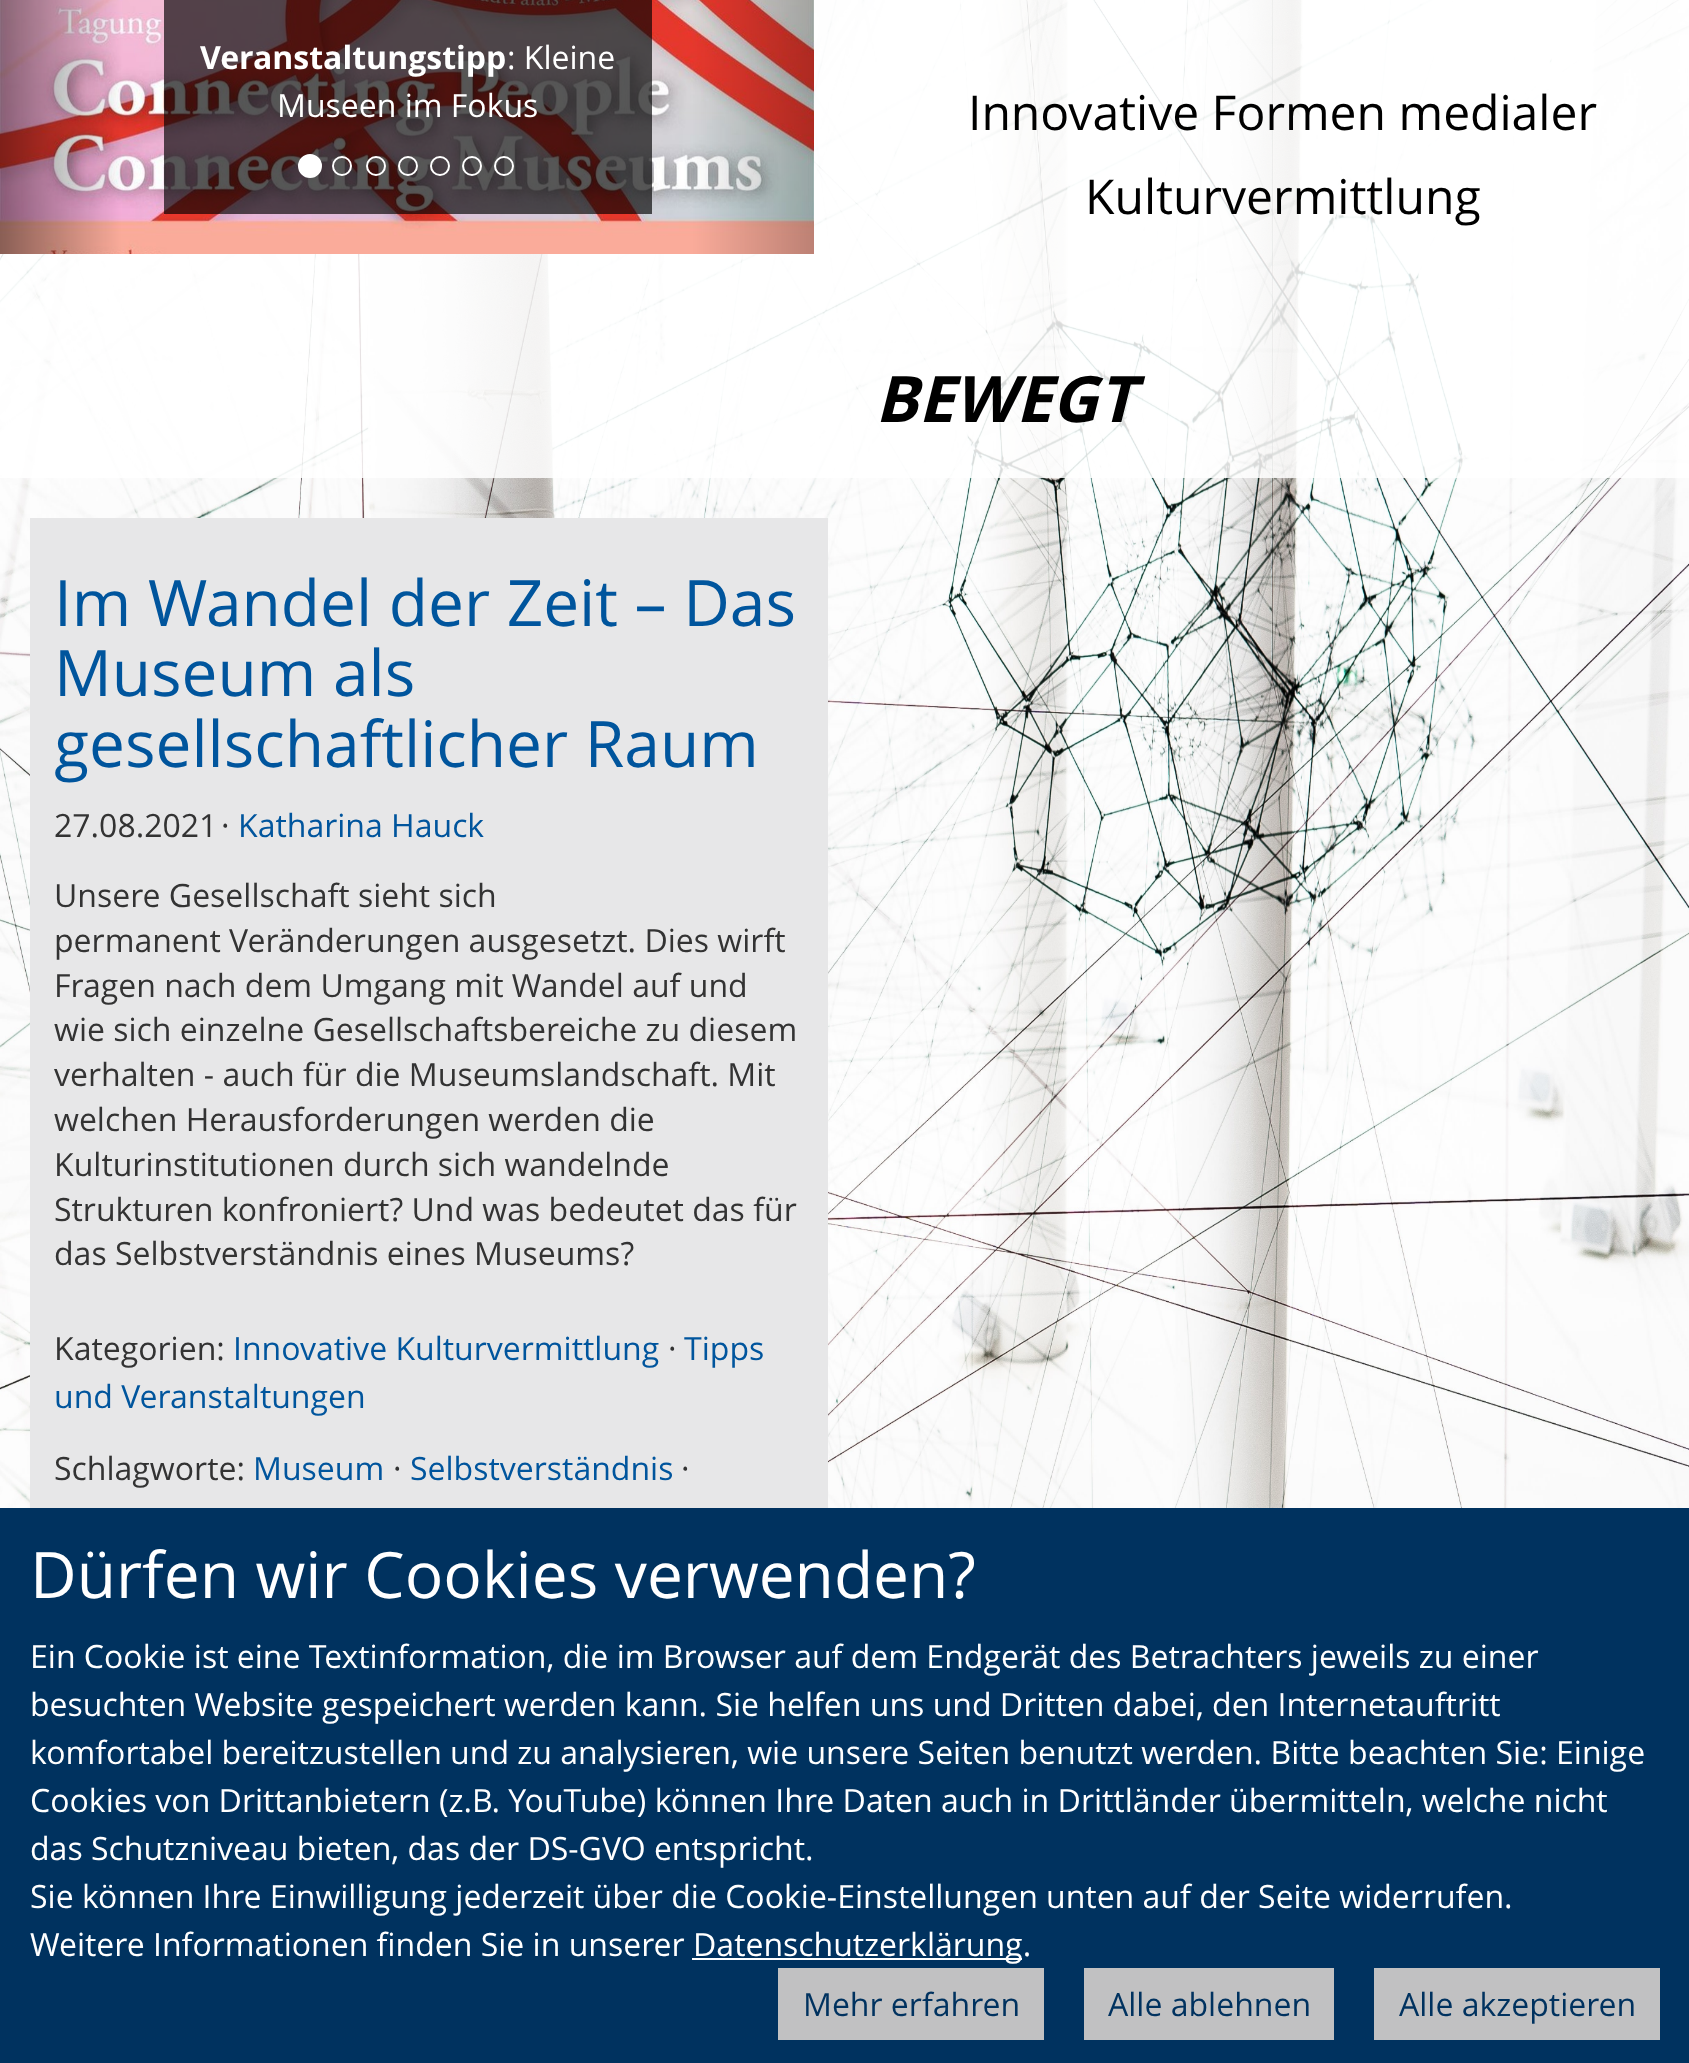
<!DOCTYPE html>
<meta charset="utf-8">
<style>body { margin: 0 } canvas { display: block }</style>
<canvas id="canvas" width="1689" height="2063"></canvas>
<script type="module">
  const canvas = document.getElementById("canvas");
  const g = canvas.getContext("2d");
  g.miterLimit = 4;
  g.fontKerning = "normal";
  function drawText(s, x, y, [font, color]) {
    g.font = font;
    g.fillStyle = color;
    g.fillText(s, x, y);
  }
  function fillBox(x, y, w, h, color) {
    g.fillStyle = color;
    g.fillRect(x, y, w, h);
  }
  async function drawPicture(src, x, y, w, h) {
    const img = new Image();
    img.src = src;
    await img.decode();
    g.drawImage(img, x, y, w, h);
  }

  const s1 = ["bold 32px Open Sans", "#FFFFFF"];
  const s2 = ["32px Open Sans", "#FFFFFF"];
  const s3 = ["48px Open Sans", "#000000"];
  const s4 = ["italic bold 64px Open Sans", "#000000"];
  const s5 = ["64px Open Sans", "#00559D"];
  const s6 = ["32px Open Sans", "#333333"];
  const s7 = ["32px Open Sans", "#00559D"];
  const s8 = ["64px Open Sans", "#FFFFFF"];
  const s9 = ["32px Open Sans", "#00325F"];

  fillBox(0, 0, 1689, 2063, "#FFFFFF");
  await drawPicture("pic1.png", 0, 0, 1689, 1508);
  fillBox(0, 0, 1689, 478, "rgba(255, 255, 255, 0.85)");
  await drawPicture("pic2.png", 0, 0, 814, 254);
  fillBox(164, 0, 488, 214, "rgba(0, 0, 0, 0.66)");
  drawText("Veranstaltungstipp", 200, 69, s1);
  drawText(": Kleine", 507, 69, s2);
  drawText("Museen im Fokus", 277, 117, s2);
  g.beginPath();
  g.arc(310, 166, 11, 0, Math.PI * 2);
  g.fill();
  g.strokeStyle = "#FFFFFF";
  g.lineWidth = 2;
  g.stroke();
  g.beginPath();
  g.arc(342, 166, 9, 0, Math.PI * 2);
  g.stroke();
  g.beginPath();
  g.arc(376, 166, 9, 0, Math.PI * 2);
  g.stroke();
  g.beginPath();
  g.arc(408, 166, 9, 0, Math.PI * 2);
  g.stroke();
  g.beginPath();
  g.arc(440, 166, 9, 0, Math.PI * 2);
  g.stroke();
  g.beginPath();
  g.arc(472, 166, 9, 0, Math.PI * 2);
  g.stroke();
  g.beginPath();
  g.arc(504, 166, 9, 0, Math.PI * 2);
  g.stroke();
  drawText("Innovative Formen medialer", 968, 130, s3);
  drawText("Kulturvermittlung", 1085, 214, s3);
  drawText("BEWEGT", 875, 422, s4);
  fillBox(30, 518, 798, 990, "#E7E7E8");
  drawText("Im Wandel der Zeit – Das", 54, 626, s5);
  drawText("Museum als", 54, 696, s5);
  drawText("gesellschaftlicher Raum", 54, 767, s5);
  drawText("27.08.2021", 54, 837, s6);
  drawText("·", 221, 837, s6);
  drawText("Katharina Hauck", 238, 837, s7);
  drawText("Unsere Gesellschaft sieht sich", 54, 907, s6);
  drawText("permanent Veränderungen ausgesetzt. Dies wirft", 54, 952, s6);
  drawText("Fragen nach dem Umgang mit Wandel auf und", 54, 997, s6);
  drawText("wie sich einzelne Gesellschaftsbereiche zu diesem", 54, 1041, s6);
  drawText("verhalten - auch für die Museumslandschaft. Mit", 54, 1086, s6);
  drawText("welchen Herausforderungen werden die", 54, 1131, s6);
  drawText("Kulturinstitutionen durch sich wandelnde", 54, 1176, s6);
  drawText("Strukturen konfroniert? Und was bedeutet das für", 54, 1221, s6);
  drawText("das Selbstverständnis eines Museums?", 54, 1265, s6);
  drawText("Kategorien:", 54, 1360, s6);
  drawText("Innovative Kulturvermittlung", 233, 1360, s7);
  drawText("·", 668, 1360, s6);
  drawText("Tipps", 684, 1360, s7);
  drawText("und Veranstaltungen", 54, 1408, s7);
  drawText("Schlagworte:", 54, 1480, s6);
  drawText("Museum", 253, 1480, s7);
  drawText("·", 393, 1480, s6);
  drawText("Selbstverständnis", 410, 1480, s7);
  drawText("·", 681, 1480, s6);
  fillBox(0, 1508, 1689, 555, "#00325F");
  drawText("Dürfen wir Cookies verwenden?", 30, 1598, s8);
  drawText("Ein Cookie ist eine Textinformation, die im Browser auf dem Endgerät des Betrachters jeweils zu einer", 30, 1668, s2);
  drawText("besuchten Website gespeichert werden kann. Sie helfen uns und Dritten dabei, den Internetauftritt", 30, 1716, s2);
  drawText("komfortabel bereitzustellen und zu analysieren, wie unsere Seiten benutzt werden. Bitte beachten Sie: Einige", 30, 1764, s2);
  drawText("Cookies von Drittanbietern (z.B. YouTube) können Ihre Daten auch in Drittländer übermitteln, welche nicht", 30, 1812, s2);
  drawText("das Schutzniveau bieten, das der DS-GVO entspricht.", 30, 1860, s2);
  drawText("Sie können Ihre Einwilligung jederzeit über die Cookie-Einstellungen unten auf der Seite widerrufen.", 30, 1908, s2);
  drawText("Weitere Informationen finden Sie in unserer", 30, 1956, s2);
  fillBox(692, 1958, 330, 2, "#FFFFFF");
  drawText("Datenschutzerklärung.", 693, 1956, s2);
  fillBox(778, 1968, 266, 72, "#C1C1C2");
  drawText("Mehr erfahren", 803, 2016, s9);
  fillBox(1084, 1968, 250, 72, "#C1C1C2");
  drawText("Alle ablehnen", 1108, 2016, s9);
  fillBox(1374, 1968, 286, 72, "#C1C1C2");
  drawText("Alle akzeptieren", 1399, 2016, s9);
</script>
